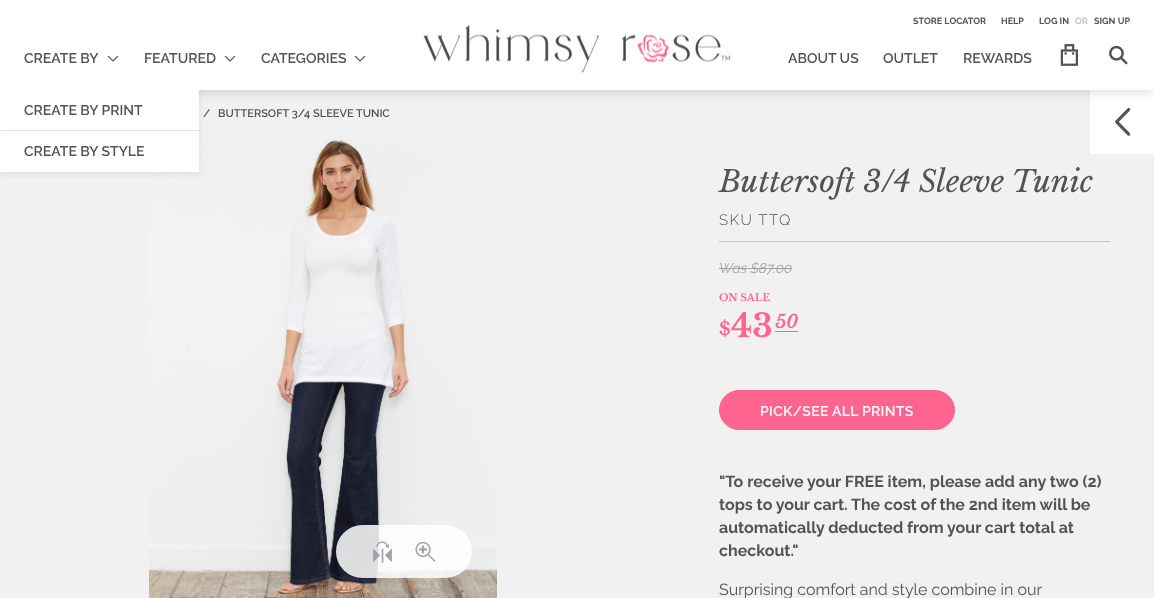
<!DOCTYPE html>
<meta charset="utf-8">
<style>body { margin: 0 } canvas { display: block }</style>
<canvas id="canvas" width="1154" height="598"></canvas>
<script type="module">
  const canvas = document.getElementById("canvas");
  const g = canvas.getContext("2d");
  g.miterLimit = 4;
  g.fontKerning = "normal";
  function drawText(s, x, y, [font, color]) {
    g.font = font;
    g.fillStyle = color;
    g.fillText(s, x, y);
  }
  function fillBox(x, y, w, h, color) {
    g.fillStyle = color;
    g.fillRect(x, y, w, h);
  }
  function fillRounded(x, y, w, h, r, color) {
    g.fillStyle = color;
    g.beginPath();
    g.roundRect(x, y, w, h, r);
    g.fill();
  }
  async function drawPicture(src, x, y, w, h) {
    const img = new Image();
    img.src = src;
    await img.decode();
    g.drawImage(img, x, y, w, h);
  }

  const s1 = ["bold 9px Raleway", "#535256"];
  const s2 = ["bold 9px Raleway", "#C5C6C8"];
  const s3 = ["600 14px Raleway", "#535256"];
  const s4 = ["600 11px Raleway", "#535256"];
  const s5 = ["italic 30px Libre Baskerville", "#535256"];
  const s6 = ["300 15px Raleway", "#535256"];
  const s7 = ["italic 14px Raleway", "#9FA3A7"];
  const s8 = ["bold 10px Libre Baskerville", "#FF638F"];
  const s9 = ["bold 18px Libre Baskerville", "#FF638F"];
  const s10 = ["bold 32px Libre Baskerville", "#FF638F"];
  const s11 = ["italic bold 18px Libre Baskerville", "#FF638F"];
  const s12 = ["600 14px Raleway", "#FFFFFF"];
  const s13 = ["bold 16px Raleway", "#535256"];
  const s14 = ["16px Raleway", "#535256"];

  fillBox(0, 0, 1154, 598, "#F2F1F1");
  fillBox(1090, 90, 64, 64, "#FFFFFF");
  g.fillStyle = "rgba(0, 0, 0, 0.1)";
  g.filter = "blur(4px)";
  g.beginPath();
  g.rect(0, 4, 1154, 90);
  g.fill();
  g.filter = "none";
  fillBox(219, 0, 935, 90, "#FFFFFF");
  drawText("STORE LOCATOR", 913, 24, s1);
  drawText("HELP", 1001, 24, s1);
  drawText("LOG IN", 1039, 24, s1);
  drawText("OR", 1075, 24, s2);
  drawText("SIGN UP", 1094, 24, s1);
  await drawPicture("pic8.png", 38, 569, 1078, 1);
  await drawPicture("pic5.png", 149, 139, 348, 459);
  g.fillStyle = "rgba(0, 0, 0, 0.05)";
  g.filter = "blur(2.5px)";
  g.beginPath();
  g.rect(-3, 90, 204, 86);
  g.fill();
  g.filter = "none";
  fillBox(0, 0, 219, 90, "#FFFFFF");
  drawText("CREATE BY", 24, 63, s3);
  await drawPicture("pic1.png", 107, 55, 12, 7);
  fillBox(0, 90, 199, 82, "#FFFFFF");
  drawText("CREATE BY PRINT", 24, 115, s3);
  g.fillStyle = "#E1E1E1";
  g.beginPath();
  g.moveTo(-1, 130);
  g.lineTo(199, 130);
  g.lineTo(199, 131);
  g.lineTo(2, 131);
  g.closePath();
  g.fill();
  g.fillStyle = "#FFFFFF";
  g.beginPath();
  g.moveTo(-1, 172);
  g.lineTo(-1, 130);
  g.lineTo(2, 131);
  g.lineTo(2, 172);
  g.closePath();
  g.fill();
  drawText("CREATE BY STYLE", 24, 156, s3);
  drawText("FEATURED", 144, 63, s3);
  await drawPicture("pic1.png", 224, 55, 12, 7);
  drawText("CATEGORIES", 261, 63, s3);
  await drawPicture("pic1.png", 354, 55, 12, 7);
  drawText("ABOUT US", 788, 63, s3);
  drawText("OUTLET", 883, 63, s3);
  drawText("REWARDS", 963, 63, s3);
  await drawPicture("pic2.png", 1060, 44, 18, 22);
  await drawPicture("pic3.png", 1109, 45, 19, 20);
  await drawPicture("pic4.png", 422, 25, 309, 48);
  drawText("/", 203, 117, s4);
  drawText("BUTTERSOFT 3/4 SLEEVE TUNIC", 218, 117, s4);
  fillRounded(336, 525, 136, 53, 26.5, "rgba(255, 255, 255, 0.85)");
  await drawPicture("pic6.png", 373, 541, 19, 22);
  await drawPicture("pic7.png", 415, 541, 21, 21);
  drawText("Buttersoft 3/4 Sleeve Tunic", 719, 192, s5);
  fillBox(719, 241, 391, 1, "#C5C6C8");
  g.letterSpacing = "1.5px";
  drawText("SKU TTQ", 719, 225, s6);
  g.letterSpacing = "0px";
  drawText("Was $87.00", 719, 273, s7);
  fillBox(719, 268, 73, 1, "#9FA3A7");
  drawText("ON SALE", 719, 301, s8);
  drawText("$", 719, 335, s9);
  drawText("43", 731, 337, s10);
  fillBox(775, 331, 23, 1, "#FF638F");
  drawText("50", 775, 328, s11);
  g.beginPath();
  g.roundRect(719.5, 390.5, 235, 39, 19.5);
  g.fill();
  g.strokeStyle = "#FF638F";
  g.stroke();
  g.letterSpacing = "0.3px";
  drawText("PICK/SEE ALL PRINTS", 760, 416, s12);
  g.letterSpacing = "0px";
  drawText("\"To receive your FREE item, please add any two (2)", 719, 487, s13);
  drawText("tops to your cart. The cost of the 2nd item will be", 719, 510, s13);
  drawText("automatically deducted from your cart total at", 719, 533, s13);
  drawText("checkout.\"", 719, 556, s13);
  drawText("Surprising comfort and style combine in our", 719, 595, s14);
  await drawPicture("pic9.png", 1115, 108, 16, 28);
</script>
